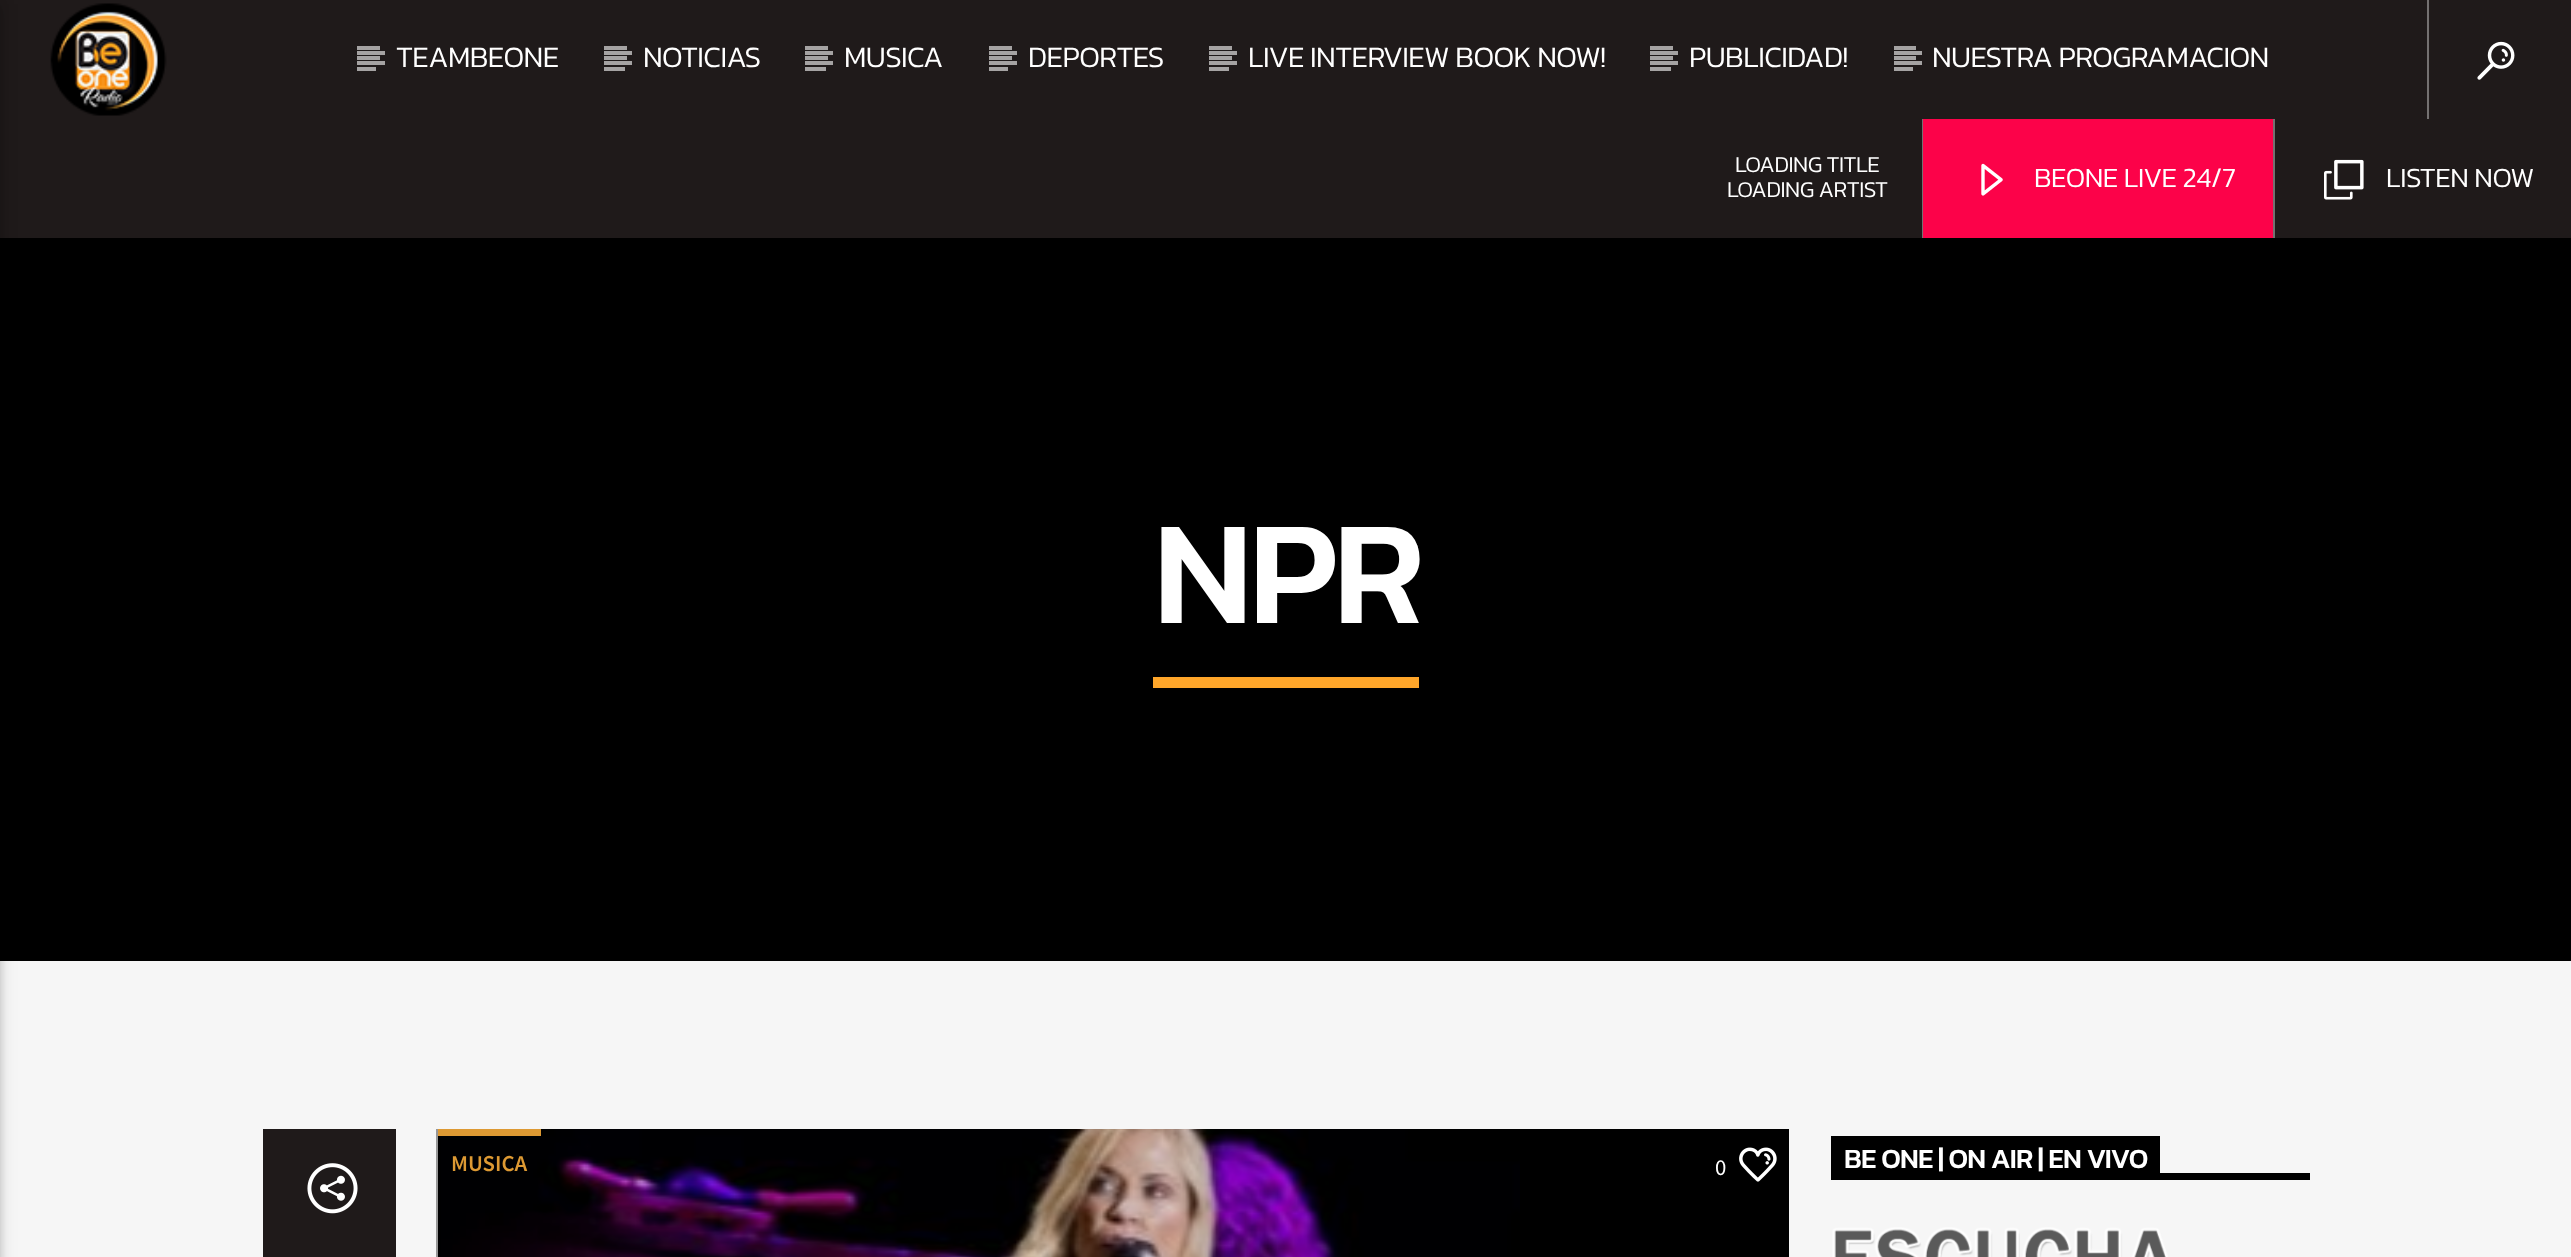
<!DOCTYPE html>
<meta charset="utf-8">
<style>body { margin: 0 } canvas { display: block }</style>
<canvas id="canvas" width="2571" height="1257"></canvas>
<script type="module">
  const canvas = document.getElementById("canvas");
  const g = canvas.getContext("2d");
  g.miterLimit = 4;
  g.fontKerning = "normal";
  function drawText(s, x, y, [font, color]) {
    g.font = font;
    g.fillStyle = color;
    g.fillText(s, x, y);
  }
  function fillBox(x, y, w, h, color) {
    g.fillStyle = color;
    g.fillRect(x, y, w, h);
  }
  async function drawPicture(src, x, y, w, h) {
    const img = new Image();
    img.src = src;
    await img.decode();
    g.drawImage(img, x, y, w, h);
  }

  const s1 = ["300 29.75px Kanit", "#FFFFFF"];
  const s2 = ["300 22.75px Kanit", "#FFFFFF"];
  const s3 = ["300 28px Kanit", "#FFFFFF"];
  const s4 = ["500 149px Kanit", "#FFFFFF"];
  const s5 = ["600 22.75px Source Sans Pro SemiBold", "#DD9933"];
  const s6 = ["22.75px Source Sans Pro", "#FFFFFF"];
  const s7 = ["500 28px Kanit", "#FFFFFF"];

  fillBox(0, 0, 2571, 1257, "#F6F6F6");
  fillBox(0, 0, 2571, 238, "#1F1A1A");
  fillBox(0, 238, 2571, 723, "#000000");
  g.fillStyle = "rgba(0, 0, 0, 0.12)";
  g.filter = "blur(9px)";
  g.beginPath();
  g.rect(-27, 4, 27, 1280);
  g.fill();
  g.filter = "none";
  g.fillStyle = "rgba(0, 0, 0, 0.16)";
  g.filter = "blur(4.5px)";
  g.beginPath();
  g.rect(-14, 4, 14, 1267);
  g.fill();
  g.filter = "none";
  await drawPicture("pic1.png", 50, 3, 117, 113);
  fillBox(357, 46, 23, 4, "#A5A3A3");
  fillBox(357, 56, 23, 4, "#A5A3A3");
  g.letterSpacing = "-0.6px";
  drawText("TEAMBEONE", 396, 67, s1);
  fillBox(357, 51, 28, 4, "#A5A3A3");
  fillBox(357, 61, 28, 4, "#A5A3A3");
  fillBox(357, 67, 19, 4, "#A5A3A3");
  fillBox(604, 46, 23, 4, "#A5A3A3");
  fillBox(604, 56, 23, 4, "#A5A3A3");
  drawText("NOTICIAS", 643, 67, s1);
  fillBox(604, 51, 28, 4, "#A5A3A3");
  fillBox(604, 61, 28, 4, "#A5A3A3");
  fillBox(604, 67, 21, 4, "#A5A3A3");
  fillBox(805, 46, 23, 4, "#A5A3A3");
  fillBox(805, 56, 23, 4, "#A5A3A3");
  drawText("MUSICA", 844, 67, s1);
  fillBox(805, 51, 28, 4, "#A5A3A3");
  fillBox(805, 61, 28, 4, "#A5A3A3");
  fillBox(805, 67, 21, 4, "#A5A3A3");
  fillBox(989, 46, 23, 4, "#A5A3A3");
  fillBox(989, 56, 23, 4, "#A5A3A3");
  drawText("DEPORTES", 1028, 67, s1);
  fillBox(989, 51, 28, 4, "#A5A3A3");
  fillBox(989, 61, 28, 4, "#A5A3A3");
  fillBox(989, 67, 19, 4, "#A5A3A3");
  fillBox(1209, 46, 23, 4, "#A5A3A3");
  fillBox(1209, 56, 23, 4, "#A5A3A3");
  drawText("LIVE INTERVIEW BOOK NOW!", 1248, 67, s1);
  fillBox(1209, 51, 28, 4, "#A5A3A3");
  fillBox(1209, 61, 28, 4, "#A5A3A3");
  fillBox(1209, 67, 20, 4, "#A5A3A3");
  fillBox(1650, 46, 23, 4, "#A5A3A3");
  fillBox(1650, 56, 23, 4, "#A5A3A3");
  drawText("PUBLICIDAD!", 1689, 67, s1);
  fillBox(1650, 51, 28, 4, "#A5A3A3");
  fillBox(1650, 61, 28, 4, "#A5A3A3");
  fillBox(1650, 67, 21, 4, "#A5A3A3");
  fillBox(1894, 46, 22, 4, "#A5A3A3");
  fillBox(1894, 56, 22, 4, "#A5A3A3");
  drawText("NUESTRA PROGRAMACION", 1932, 67, s1);
  fillBox(1894, 51, 28, 4, "#A5A3A3");
  fillBox(1894, 61, 28, 4, "#A5A3A3");
  fillBox(1894, 67, 19, 4, "#A5A3A3");
  fillBox(2427, 0, 2, 119, "#747171");
  await drawPicture("pic2.png", 2477, 41, 38, 39);
  g.letterSpacing = "-0.5px";
  drawText("LOADING TITLE", 1735, 172, s2);
  drawText("LOADING ARTIST", 1727, 197, s2);
  fillBox(1922, 119, 1, 119, "#747171");
  fillBox(1923, 119, 350, 119, "#FC0249");
  await drawPicture("pic3.png", 1981, 163, 22, 33);
  drawText("BEONE LIVE 24/7", 2034, 187, s3);
  fillBox(2273, 119, 2, 119, "#747171");
  await drawPicture("pic4.png", 2324, 159, 40, 41);
  drawText("LISTEN NOW", 2386, 187, s3);
  fillBox(1153, 677, 266, 11, "#FFA62A");
  g.letterSpacing = "-4.5px";
  drawText("NPR", 1153, 623, s4);
  fillBox(263, 1129, 133, 128, "#1F1A1A");
  await drawPicture("pic5.png", 307, 1163, 51, 51);
  fillBox(438, 1129, 1351, 128, "#000000");
  await drawPicture("pic6.png", 436, 1129, 1084, 128);
  fillBox(438, 1129, 103, 7, "#DD9933");
  g.letterSpacing = "0px";
  drawText("MUSICA", 451, 1171, s5);
  drawText("0", 1715, 1175, s6);
  await drawPicture("pic7.png", 1739, 1147, 38, 35);
  fillBox(2160, 1173, 150, 7, "#000000");
  fillBox(1831, 1136, 329, 44, "#000000");
  g.letterSpacing = "-0.8px";
  drawText("BE ONE | ON AIR | EN VIVO", 1844, 1168, s7);
  await drawPicture("pic8.png", 1832, 1227, 336, 30);
</script>
